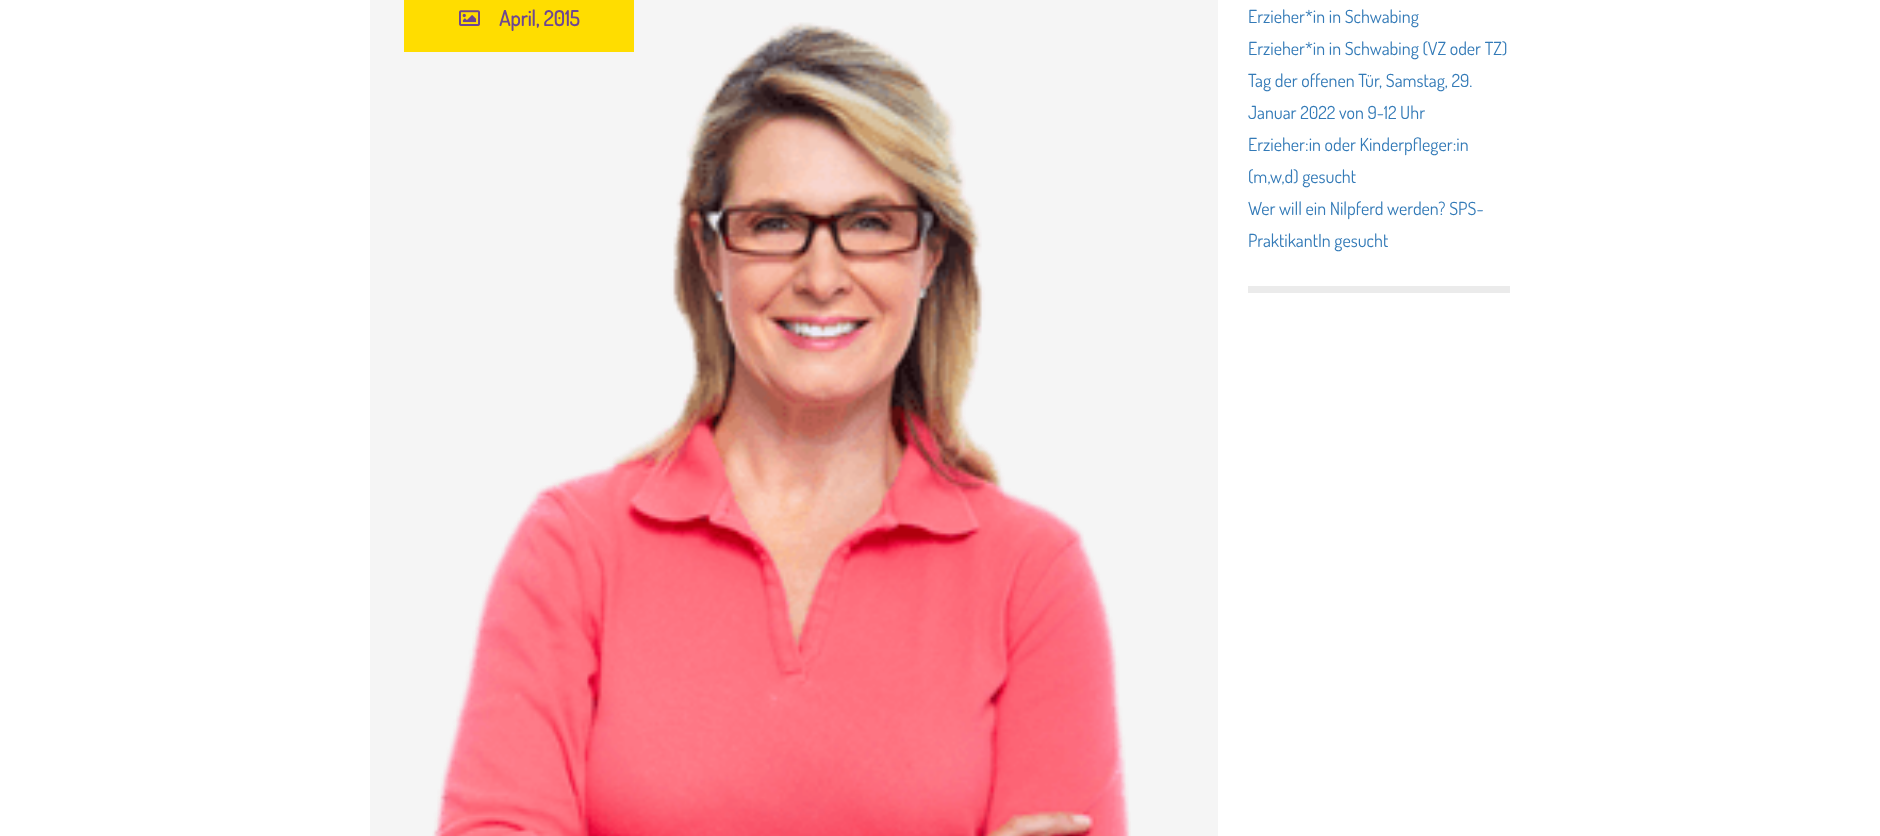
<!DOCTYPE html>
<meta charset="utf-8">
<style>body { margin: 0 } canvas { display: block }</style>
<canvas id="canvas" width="1880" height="836"></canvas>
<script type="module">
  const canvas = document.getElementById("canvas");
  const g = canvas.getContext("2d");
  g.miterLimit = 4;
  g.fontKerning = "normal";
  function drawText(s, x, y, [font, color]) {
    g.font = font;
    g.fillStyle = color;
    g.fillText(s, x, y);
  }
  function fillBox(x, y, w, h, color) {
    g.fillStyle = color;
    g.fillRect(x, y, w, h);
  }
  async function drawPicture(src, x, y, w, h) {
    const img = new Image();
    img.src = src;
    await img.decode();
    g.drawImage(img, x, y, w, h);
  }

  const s1 = ["bold 21px Dosis", "#6E4692"];
  const s2 = ["18px Dosis", "#337AB7"];

  fillBox(0, 0, 1880, 836, "#FFFFFF");
  fillBox(370, 0, 848, 836, "#F5F5F5");
  await drawPicture("pic2.png", 432, 22, 699, 814);
  fillBox(404, 0, 230, 52, "#FFDD00");
  await drawPicture("pic1.png", 459, 10, 21, 16);
  drawText("April, 2015", 499, 26, s1);
  fillBox(1248, 286, 262, 7, "#EBEBEB");
  drawText("Erzieher*in in Schwabing", 1248, 23, s2);
  drawText("Erzieher*in in Schwabing (VZ oder TZ)", 1248, 55, s2);
  drawText("Tag der offenen Tür, Samstag, 29.", 1248, 87, s2);
  drawText("Januar 2022 von 9-12 Uhr", 1248, 119, s2);
  drawText("Erzieher:in oder Kinderpfleger:in", 1248, 151, s2);
  drawText("(m,w,d) gesucht", 1248, 183, s2);
  drawText("Wer will ein Nilpferd werden? SPS-", 1248, 215, s2);
  drawText("PraktikantIn gesucht", 1248, 247, s2);
</script>
